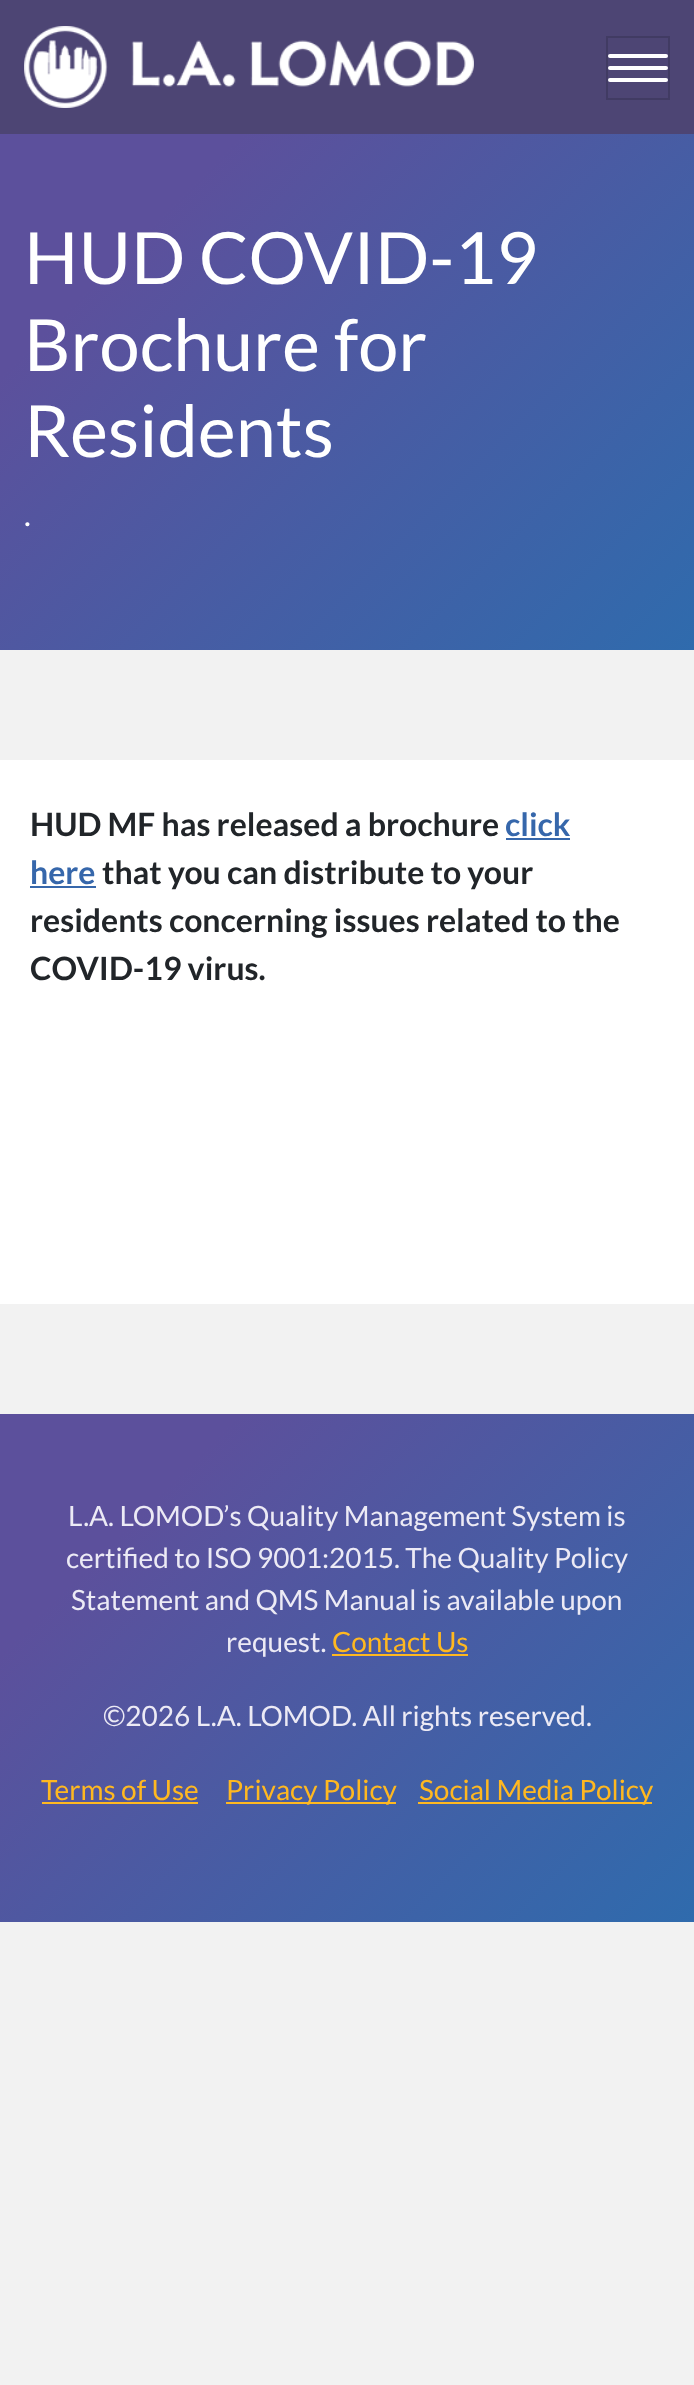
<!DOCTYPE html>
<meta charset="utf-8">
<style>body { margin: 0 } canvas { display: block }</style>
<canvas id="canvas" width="694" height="2385"></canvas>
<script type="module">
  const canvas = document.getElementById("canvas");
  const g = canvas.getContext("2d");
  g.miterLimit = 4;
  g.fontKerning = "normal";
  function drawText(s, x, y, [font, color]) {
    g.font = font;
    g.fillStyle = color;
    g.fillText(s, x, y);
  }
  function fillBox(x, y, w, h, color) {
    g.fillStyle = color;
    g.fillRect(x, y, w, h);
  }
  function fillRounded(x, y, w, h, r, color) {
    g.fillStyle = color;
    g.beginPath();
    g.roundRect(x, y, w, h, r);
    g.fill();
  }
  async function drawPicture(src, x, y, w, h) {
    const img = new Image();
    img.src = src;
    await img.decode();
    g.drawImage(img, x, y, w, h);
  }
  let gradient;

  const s1 = ["72px Lato", "#FFFFFF"];
  const s2 = ["32px Lato", "#FFFFFF"];
  const s3 = ["bold 32px Lato", "#212529"];
  const s4 = ["bold 32px Lato", "#3667AB"];
  const s5 = ["28px Lato", "#ECEAF5"];
  const s6 = ["28px Lato", "#FFB820"];

  fillBox(0, 0, 694, 2385, "#F2F2F2");
  fillBox(0, 0, 694, 134, "#4D4574");
  await drawPicture("pic1.png", 24, 26, 450, 82);
  g.strokeStyle = "#413B63";
  g.lineWidth = 2;
  g.strokeRect(607, 37, 62, 62);
  fillRounded(608, 54, 60, 4, 2, "#FFFFFF");
  fillRounded(608, 66, 60, 4, 2, "#FFFFFF");
  fillRounded(608, 78, 60, 4, 2, "#FFFFFF");
  gradient = g.createLinearGradient(44, 90, 650, 695);
  gradient.addColorStop(0.2, "#5C509C");
  gradient.addColorStop(1, "#2F6BAD");
  g.fillStyle = gradient;
  g.fillRect(0, 134, 694, 516);
  drawText("HUD COVID-19", 24, 284, s1);
  drawText("Brochure for", 24, 371, s1);
  drawText("Residents", 24, 457, s1);
  drawText(".", 24, 526, s2);
  fillBox(0, 760, 694, 544, "#FFFFFF");
  drawText("HUD MF has released a brochure", 30, 836, s3);
  drawText("click", 505, 836, s4);
  fillBox(506, 838, 64, 2, "#3667AB");
  drawText("here", 30, 884, s4);
  fillBox(30, 886, 66, 2, "#3667AB");
  drawText("that you can distribute to your", 102, 884, s3);
  drawText("residents concerning issues related to the", 30, 932, s3);
  drawText("COVID-19 virus.", 30, 980, s3);
  gradient = g.createLinearGradient(46, 1368, 648, 1969);
  gradient.addColorStop(0.2, "#5C509C");
  gradient.addColorStop(1, "#2F6BAD");
  g.fillStyle = gradient;
  g.fillRect(0, 1414, 694, 508);
  drawText("L.A. LOMOD’s Quality Management System is", 68, 1526, s5);
  drawText("certified to ISO 9001:2015. The Quality Policy", 66, 1568, s5);
  drawText("Statement and QMS Manual is available upon", 71, 1610, s5);
  drawText("request.", 226, 1652, s5);
  drawText("Contact Us", 332, 1652, s6);
  fillBox(332, 1654, 136, 2, "#FFB820");
  drawText("©2026 L.A. LOMOD. All rights reserved.", 103, 1726, s5);
  drawText("Terms of Use", 41, 1800, s6);
  fillBox(42, 1802, 156, 2, "#FFB820");
  fillBox(226, 1802, 170, 2, "#FFB820");
  drawText("Privacy Policy", 226, 1800, s6);
  fillBox(418, 1802, 234, 2, "#FFB820");
  drawText("Social Media Policy", 419, 1800, s6);
</script>
